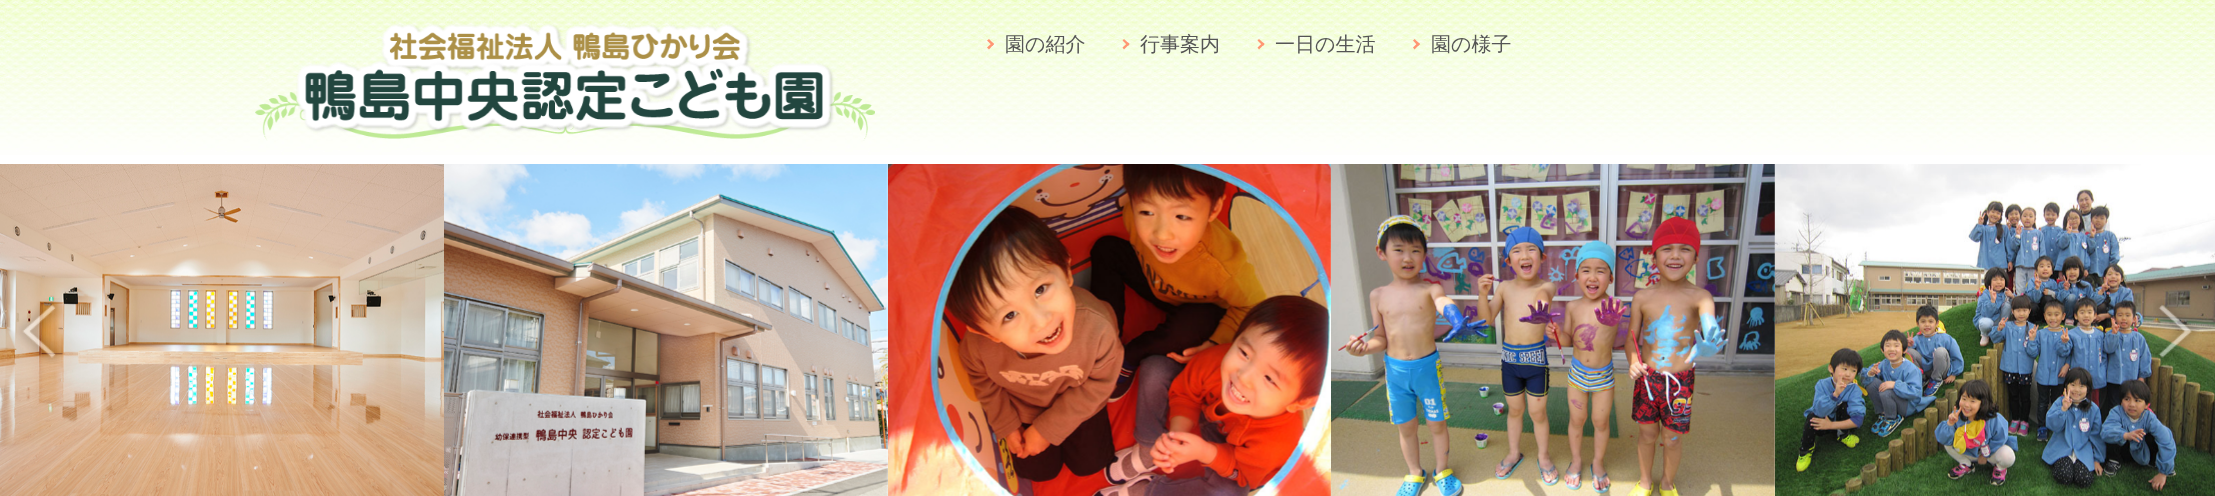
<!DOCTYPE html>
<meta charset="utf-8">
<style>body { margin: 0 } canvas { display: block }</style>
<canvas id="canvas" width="2215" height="496"></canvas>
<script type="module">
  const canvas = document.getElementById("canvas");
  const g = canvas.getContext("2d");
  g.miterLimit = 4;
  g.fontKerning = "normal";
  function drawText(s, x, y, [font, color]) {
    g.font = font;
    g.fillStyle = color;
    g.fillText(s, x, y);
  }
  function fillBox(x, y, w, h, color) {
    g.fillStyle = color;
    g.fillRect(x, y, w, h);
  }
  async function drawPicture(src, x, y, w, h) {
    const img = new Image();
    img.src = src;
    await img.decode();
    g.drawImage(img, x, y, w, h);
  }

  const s1 = ["500 20px WenQuanYi Zen Hei", "#555555"];

  fillBox(0, 0, 2215, 496, "#FFFFFF");
  await drawPicture("pic1.png", 0, 0, 2215, 155);
  await drawPicture("pic2.png", 255, 24, 620, 117);
  g.fillStyle = "#FF9673";
  g.beginPath();
  g.moveTo(987, 40.5);
  g.lineTo(989, 39);
  g.lineTo(994, 44);
  g.lineTo(992.5, 46);
  g.closePath();
  g.fill();
  g.beginPath();
  g.moveTo(987, 47.5);
  g.lineTo(992.5, 42.5);
  g.lineTo(994, 44);
  g.lineTo(989, 49.5);
  g.closePath();
  g.fill();
  drawText("園の紹介", 1005, 51, s1);
  g.fillStyle = "#FF9673";
  g.beginPath();
  g.moveTo(1122.5, 40.5);
  g.lineTo(1124, 39);
  g.lineTo(1129.5, 44);
  g.lineTo(1128, 46);
  g.closePath();
  g.fill();
  g.beginPath();
  g.moveTo(1122.5, 47.5);
  g.lineTo(1128, 42.5);
  g.lineTo(1129.5, 44);
  g.lineTo(1124, 49.5);
  g.closePath();
  g.fill();
  drawText("行事案内", 1140, 51, s1);
  g.fillStyle = "#FF9673";
  g.beginPath();
  g.moveTo(1257.5, 40.5);
  g.lineTo(1259, 39);
  g.lineTo(1264.5, 44);
  g.lineTo(1263, 46);
  g.closePath();
  g.fill();
  g.beginPath();
  g.moveTo(1257.5, 47.5);
  g.lineTo(1263, 42.5);
  g.lineTo(1264.5, 44);
  g.lineTo(1259, 49.5);
  g.closePath();
  g.fill();
  drawText("一日の生活", 1275, 51, s1);
  g.fillStyle = "#FF9673";
  g.beginPath();
  g.moveTo(1413, 40.5);
  g.lineTo(1414.5, 39);
  g.lineTo(1420, 44);
  g.lineTo(1418, 46);
  g.closePath();
  g.fill();
  g.beginPath();
  g.moveTo(1413, 47.5);
  g.lineTo(1418, 42.5);
  g.lineTo(1420, 44);
  g.lineTo(1414.5, 49.5);
  g.closePath();
  g.fill();
  drawText("園の様子", 1431, 51, s1);
  await drawPicture("pic3.png", 0, 164, 444, 332);
  await drawPicture("pic4.png", 444, 164, 444, 332);
  await drawPicture("pic5.png", 888, 164, 443, 332);
  await drawPicture("pic6.png", 1331, 164, 444, 332);
  await drawPicture("pic7.png", 1775, 164, 440, 332);
  await drawPicture("pic8.png", 16, 298, 46, 66);
  await drawPicture("pic9.png", 2153, 299, 46, 64);
</script>
